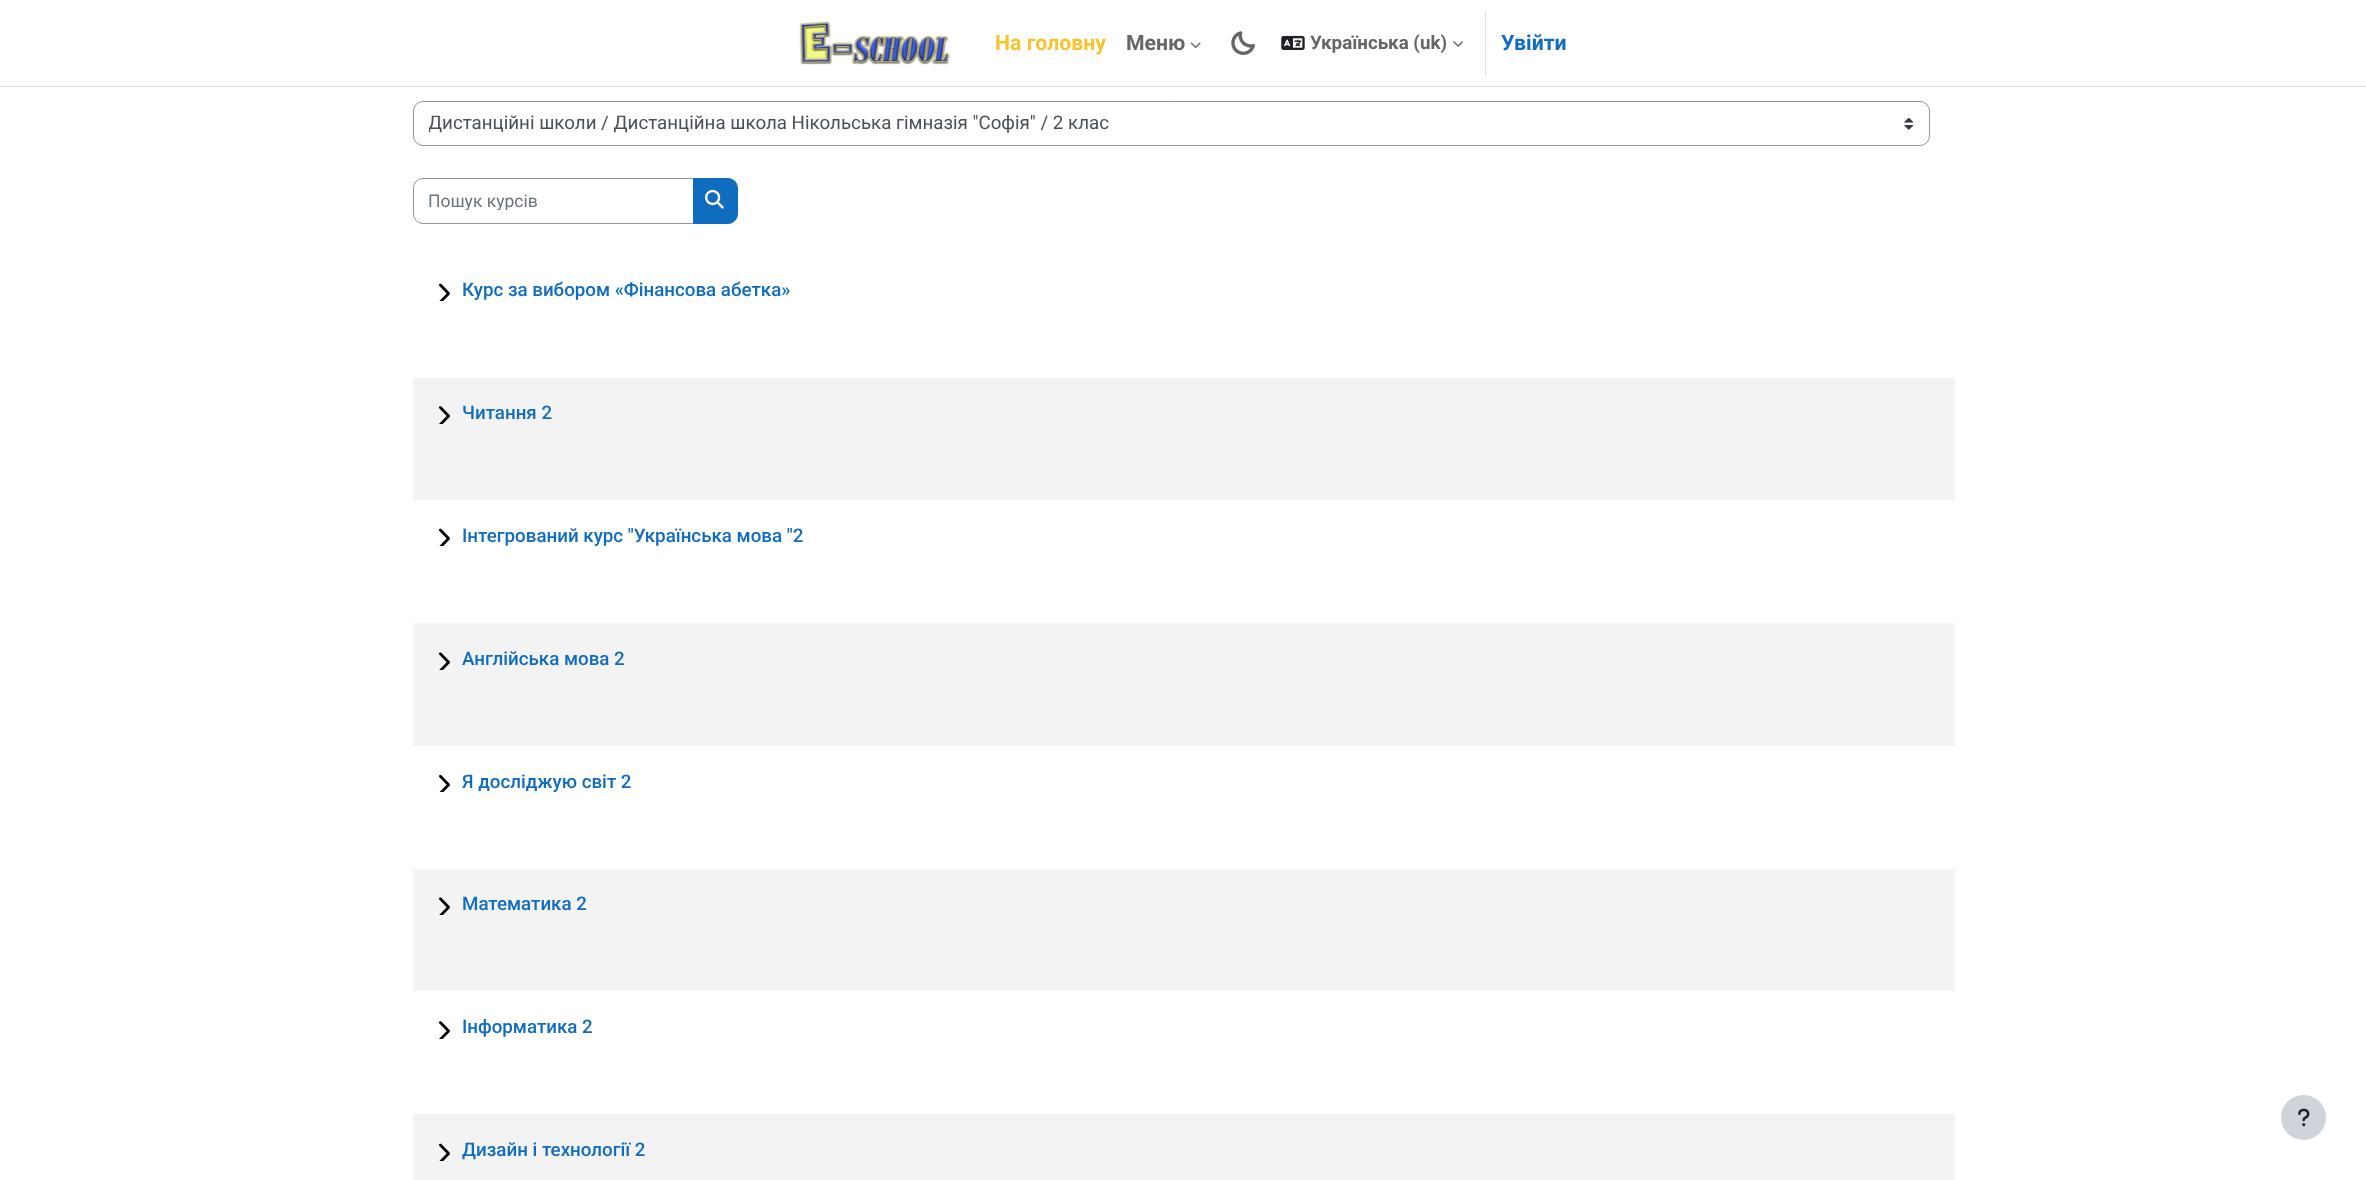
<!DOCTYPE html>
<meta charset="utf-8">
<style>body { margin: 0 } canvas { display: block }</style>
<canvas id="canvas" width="2366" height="1180"></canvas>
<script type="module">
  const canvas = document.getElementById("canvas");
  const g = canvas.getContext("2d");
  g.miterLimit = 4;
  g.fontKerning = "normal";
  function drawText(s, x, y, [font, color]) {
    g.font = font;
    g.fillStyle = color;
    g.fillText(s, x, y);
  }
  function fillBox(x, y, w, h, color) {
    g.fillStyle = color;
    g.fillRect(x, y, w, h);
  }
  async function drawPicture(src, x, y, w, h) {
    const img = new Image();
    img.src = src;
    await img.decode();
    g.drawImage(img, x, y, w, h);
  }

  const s1 = ["bold 21.25px Roboto", "#F7C32E"];
  const s2 = ["bold 21.25px Roboto", "#666666"];
  const s3 = ["bold 18.75px Roboto", "#666666"];
  const s4 = ["bold 21.25px Roboto", "#0F6CBF"];
  const s5 = ["18.75px Roboto", "#495057"];
  const s6 = ["17.5px Roboto", "#6A737B"];
  const s7 = ["500 18.75px Roboto", "#0F6CBF"];

  fillBox(0, 0, 2366, 1180, "#FFFFFF");
  fillBox(0, 86, 2366, 1, "#DEE2E6");
  await drawPicture("pic1.png", 799, 21, 151, 44);
  drawText("На головну", 995, 50, s1);
  drawText("Меню", 1126, 50, s2);
  await drawPicture("pic2.png", 1190, 42, 11, 6);
  await drawPicture("pic3.png", 1231, 31, 24, 24);
  await drawPicture("pic4.png", 1281, 35, 24, 15);
  drawText("Українська (uk)", 1310, 49, s3);
  await drawPicture("pic5.png", 1453, 41, 10, 6);
  fillBox(1485, 11, 1, 64, "#DEE2E6");
  drawText("Увійти", 1501, 50, s4);
  await drawPicture("pic6.png", 1904, 118, 10, 12);
  g.beginPath();
  g.roundRect(413.5, 101.5, 1516, 44, 9.5);
  g.strokeStyle = "#8F959E";
  g.stroke();
  g.save();
  g.beginPath();
  g.rect(429, 110, 1465, 28);
  g.clip();
  drawText("Дистанційні школи / Дистанційна школа Нікольська гімназія \"Софія\" / 2 клас", 428, 129, s5);
  g.restore();
  g.beginPath();
  g.roundRect(413.5, 178.5, 280, 45, [9.5, 0, 0, 9.5]);
  g.stroke();
  g.save();
  g.beginPath();
  g.rect(429, 190, 249, 20);
  g.clip();
  drawText("Пошук курсів", 428, 207, s6);
  g.restore();
  g.beginPath();
  g.roundRect(693.5, 178.5, 44, 45, [0, 9.5, 9.5, 0]);
  g.fill();
  g.strokeStyle = "#0F6CBF";
  g.stroke();
  await drawPicture("pic7.png", 705, 189, 19, 20);
  await drawPicture("pic8.png", 439, 283, 11, 18);
  drawText("Курс за вибором «Фінансова абетка»", 462, 296, s7);
  fillBox(413, 378, 1542, 122, "#F3F3F3");
  await drawPicture("pic9.png", 439, 406, 11, 18);
  drawText("Читання 2", 462, 419, s7);
  await drawPicture("pic8.png", 439, 528, 11, 18);
  drawText("Інтегрований курс \"Українська мова \"2", 462, 542, s7);
  fillBox(413, 623, 1542, 123, "#F3F3F3");
  await drawPicture("pic10.png", 439, 652, 11, 18);
  drawText("Англійська мова 2", 462, 665, s7);
  await drawPicture("pic11.png", 439, 775, 11, 17);
  drawText("Я досліджую світ 2", 462, 788, s7);
  fillBox(413, 869, 1542, 122, "#F3F3F3");
  await drawPicture("pic10.png", 439, 897, 11, 18);
  drawText("Математика 2", 462, 910, s7);
  await drawPicture("pic12.png", 439, 1021, 11, 18);
  drawText("Інформатика 2", 462, 1033, s7);
  fillBox(413, 1114, 1542, 66, "#F3F3F3");
  await drawPicture("pic13.png", 439, 1143, 11, 18);
  drawText("Дизайн і технології 2", 462, 1156, s7);
  g.fillStyle = "#CED4DA";
  g.beginPath();
  g.arc(2303.5, 1117.5, 22.5, 0, Math.PI * 2);
  g.fill();
  await drawPicture("pic14.png", 2298, 1108, 12, 19);
</script>
